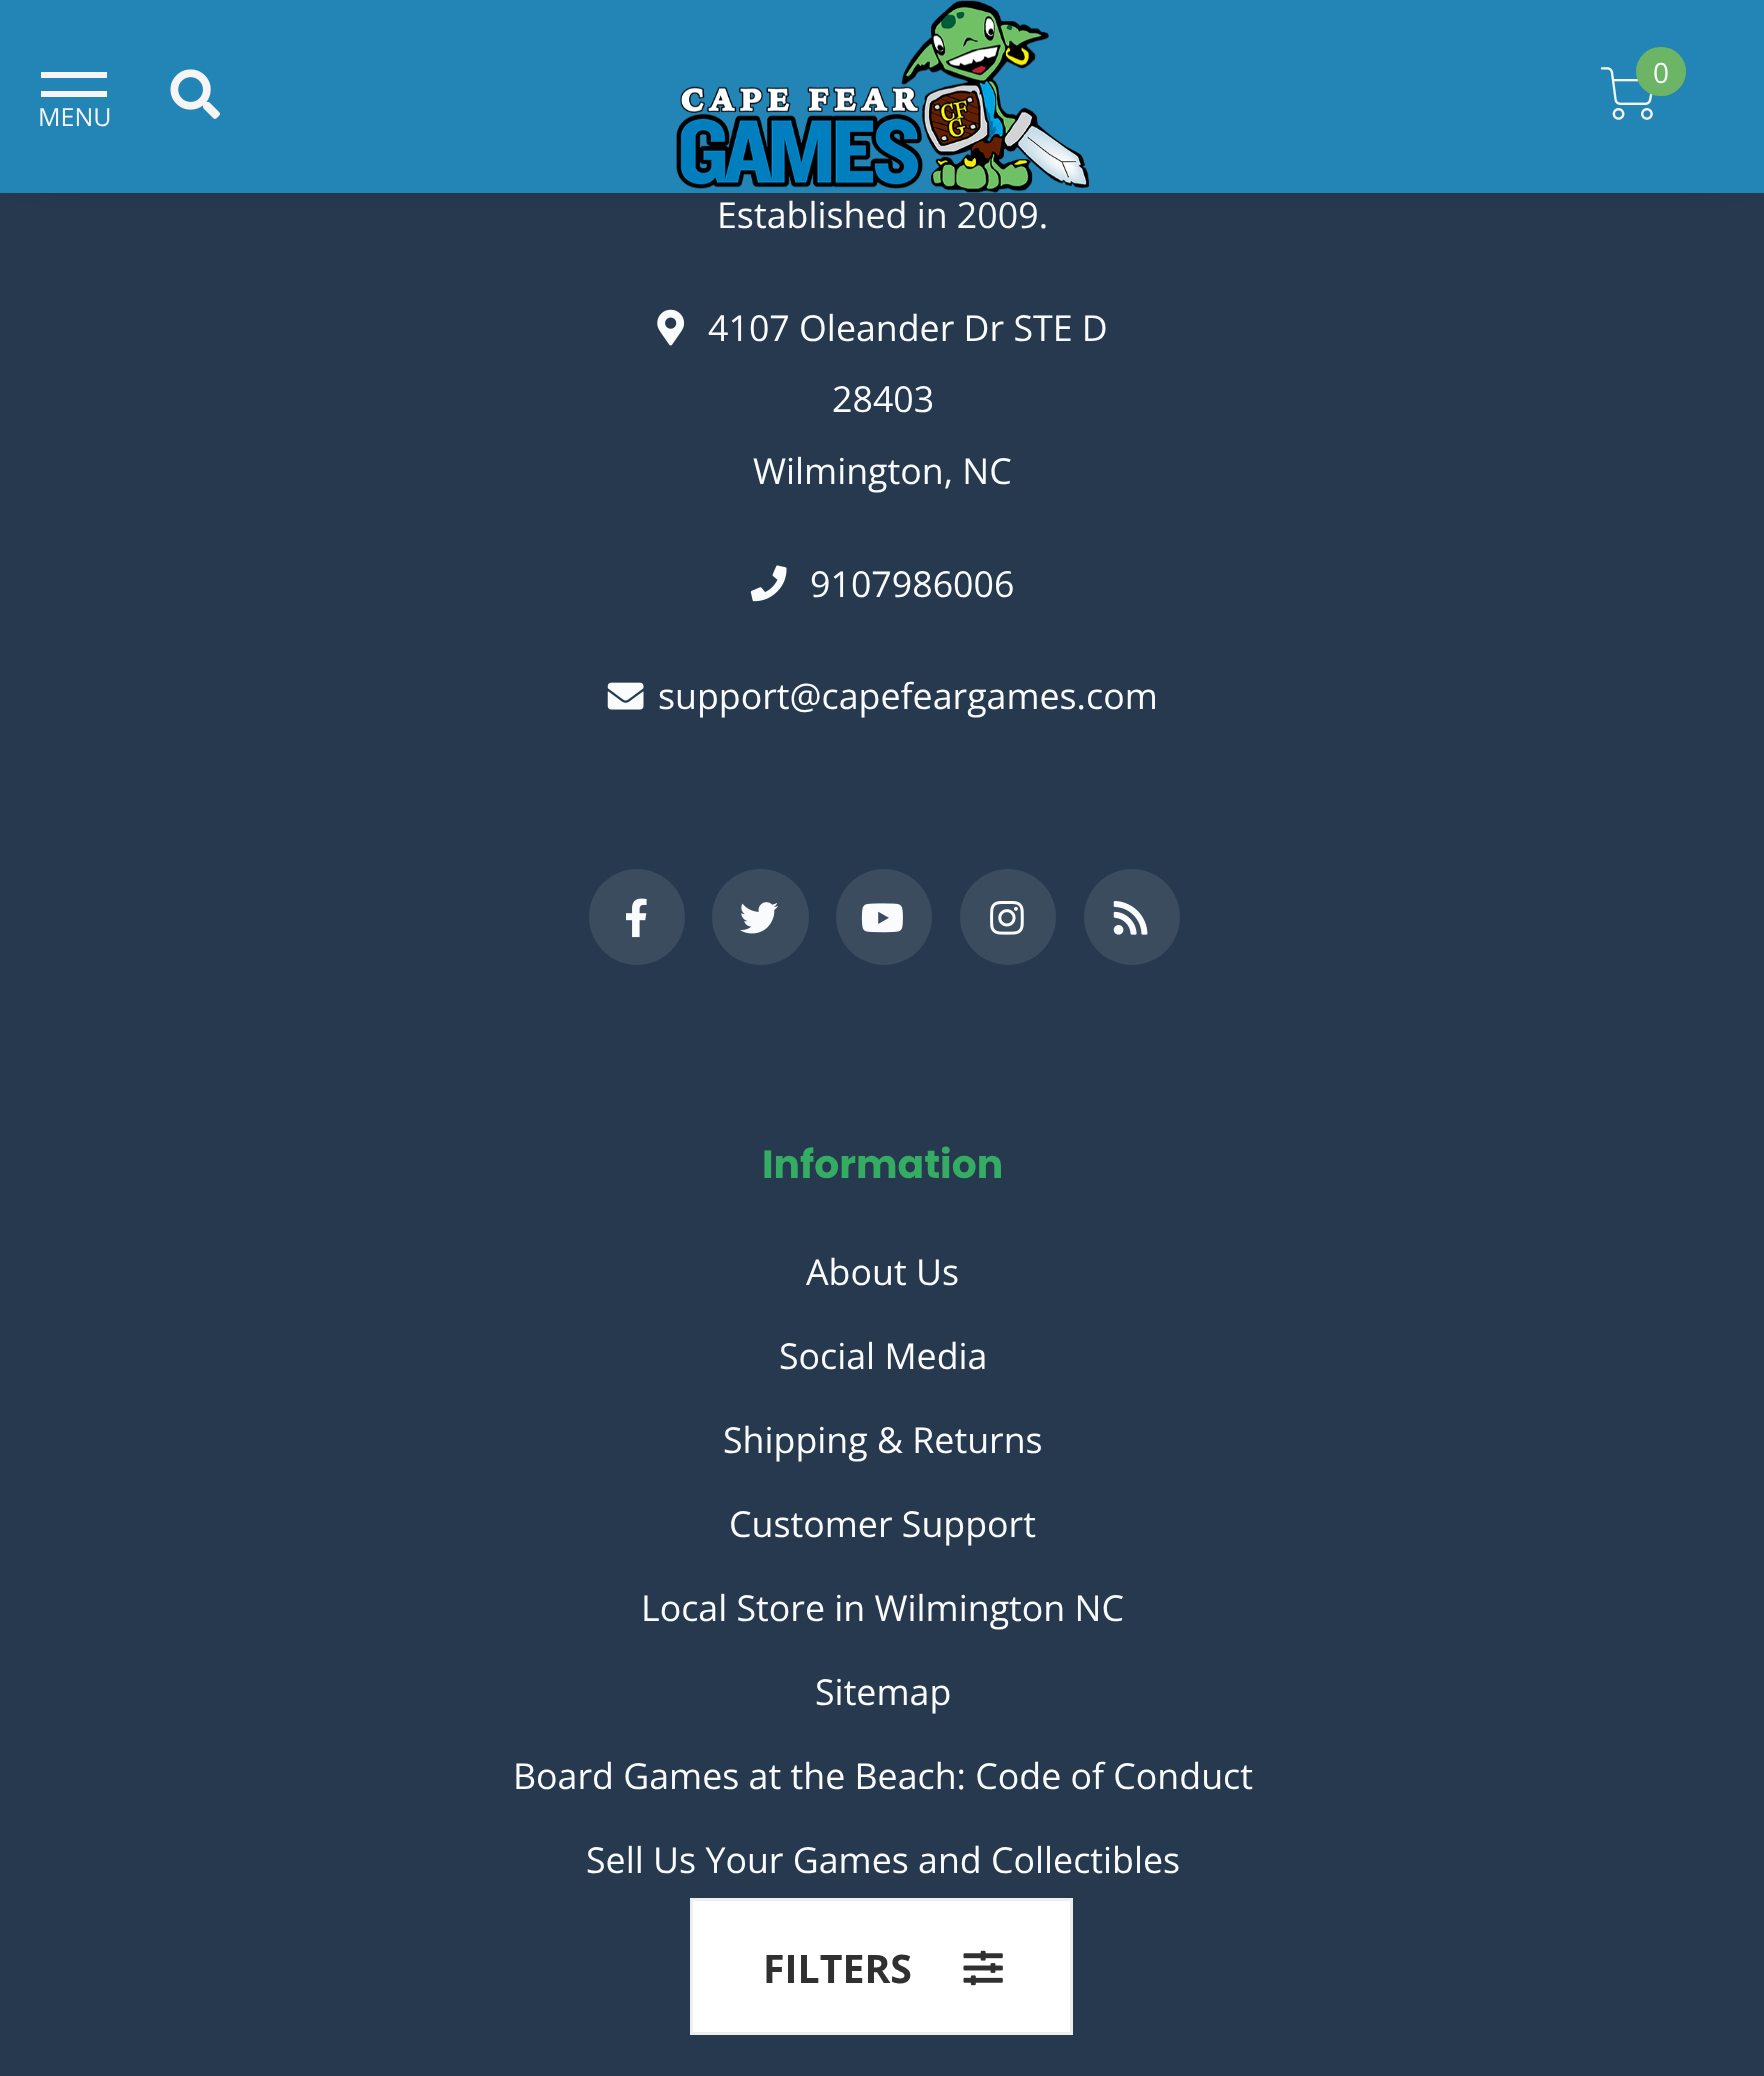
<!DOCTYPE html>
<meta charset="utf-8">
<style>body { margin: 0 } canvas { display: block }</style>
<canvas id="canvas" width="1764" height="2076"></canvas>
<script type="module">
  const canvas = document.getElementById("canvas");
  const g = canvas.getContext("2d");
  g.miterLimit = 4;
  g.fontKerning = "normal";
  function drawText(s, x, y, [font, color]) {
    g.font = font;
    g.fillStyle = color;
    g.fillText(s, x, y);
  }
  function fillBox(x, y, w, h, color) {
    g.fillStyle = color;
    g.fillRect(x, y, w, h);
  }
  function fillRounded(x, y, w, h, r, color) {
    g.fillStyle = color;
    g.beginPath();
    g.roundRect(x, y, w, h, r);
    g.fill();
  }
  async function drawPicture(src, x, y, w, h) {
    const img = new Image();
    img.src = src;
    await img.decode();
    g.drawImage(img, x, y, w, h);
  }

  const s1 = ["28px Open Sans", "#FAFBFD"];
  const s2 = ["25px Open Sans", "#F5F5F5"];
  const s3 = ["35.75px Open Sans", "#FAFBFD"];
  const s4 = ["bold 39.25px Poppins", "#34AC63"];
  const s5 = ["bold 39.25px Open Sans", "#303030"];

  fillBox(0, 0, 1764, 2076, "#26394E");
  g.fillStyle = "rgba(0, 0, 0, 0.8)";
  g.filter = "blur(22px)";
  g.beginPath();
  g.rect(36, 36, 1694, 121);
  g.fill();
  g.filter = "none";
  fillBox(0, 0, 1764, 193, "#2384B6");
  await drawPicture("pic1.png", 676, 0, 413, 193);
  await drawPicture("pic2.png", 1600, 67, 53, 53);
  fillRounded(1636, 47, 50, 49, 24.5, "#6DB566");
  drawText("0", 1653, 83, s1);
  fillBox(41, 72, 66, 6, "#F5F5F5");
  fillBox(41, 91, 66, 6, "#F5F5F5");
  drawText("MENU", 38, 126, s2);
  await drawPicture("pic3.png", 170, 69, 50, 50);
  drawText("Established in 2009.", 717, 228, s3);
  await drawPicture("pic4.png", 657, 309, 28, 37);
  drawText("4107 Oleander Dr STE D", 708, 341, s3);
  drawText("28403", 832, 412, s3);
  drawText("Wilmington, NC", 753, 484, s3);
  await drawPicture("pic5.png", 750, 565, 37, 37);
  drawText("9107986006", 810, 597, s3);
  await drawPicture("pic6.png", 607, 682, 37, 28);
  drawText("support@capefeargames.com", 658, 709, s3);
  g.fillStyle = "#3B4C5F";
  g.beginPath();
  g.arc(637, 917, 48, 0, Math.PI * 2);
  g.fill();
  await drawPicture("pic7.png", 626, 898, 21, 40);
  fillRounded(712, 869, 97, 96, 48, "#3B4C5F");
  await drawPicture("pic8.png", 740, 902, 38, 32);
  g.beginPath();
  g.arc(884, 917, 48, 0, Math.PI * 2);
  g.fill();
  await drawPicture("pic9.png", 861, 903, 42, 30);
  g.beginPath();
  g.arc(1008, 917, 48, 0, Math.PI * 2);
  g.fill();
  await drawPicture("pic10.png", 990, 901, 34, 34);
  g.beginPath();
  g.arc(1132, 917, 48, 0, Math.PI * 2);
  g.fill();
  await drawPicture("pic11.png", 1113, 901, 35, 34);
  drawText("Information", 762, 1178, s4);
  drawText("About Us", 806, 1285, s3);
  drawText("Social Media", 779, 1369, s3);
  drawText("Shipping & Returns", 723, 1453, s3);
  drawText("Customer Support", 729, 1537, s3);
  drawText("Local Store in Wilmington NC", 641, 1621, s3);
  drawText("Sitemap", 815, 1705, s3);
  drawText("Board Games at the Beach: Code of Conduct", 513, 1789, s3);
  drawText("Sell Us Your Games and Collectibles", 586, 1873, s3);
  g.fillStyle = "#FFFFFF";
  g.beginPath();
  g.rect(691.5, 1899.5, 380, 134);
  g.fill();
  g.strokeStyle = "#EEEEEE";
  g.lineWidth = 3;
  g.stroke();
  drawText("FILTERS", 763, 1983, s5);
  await drawPicture("pic12.png", 963, 1950, 40, 36);
</script>
